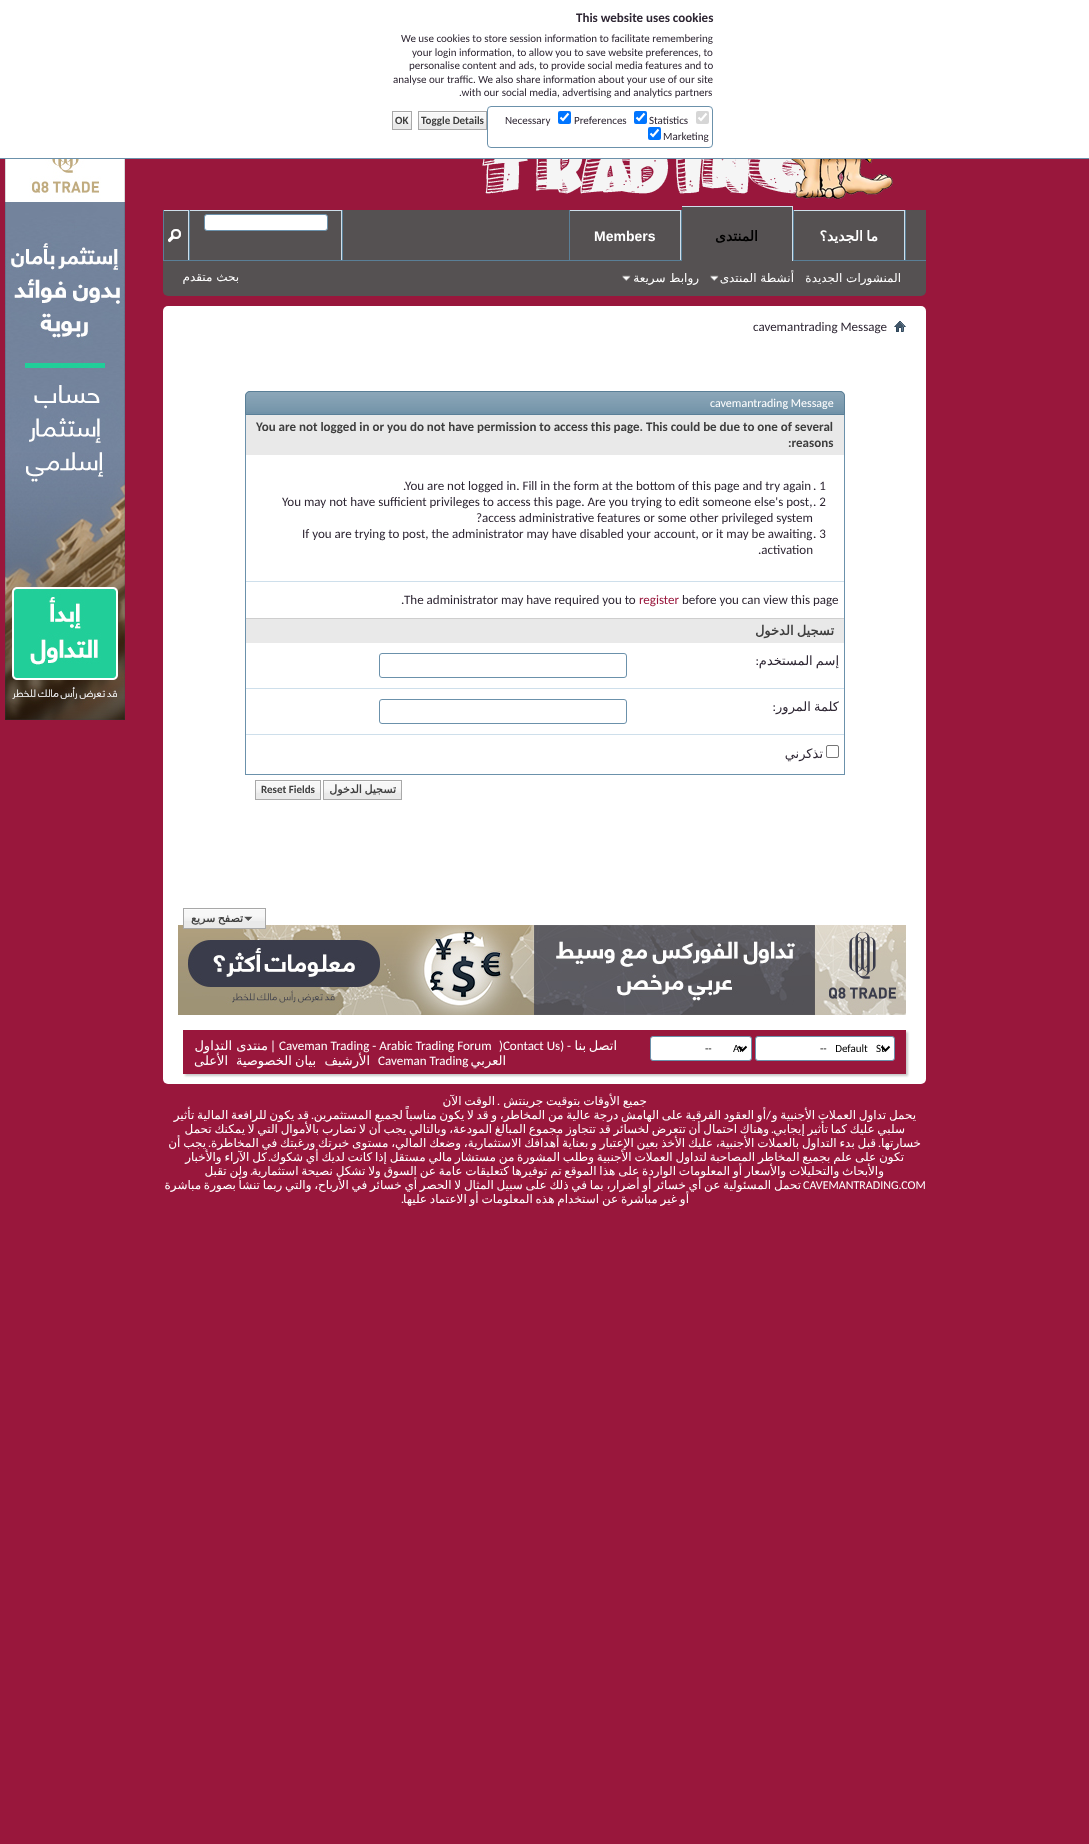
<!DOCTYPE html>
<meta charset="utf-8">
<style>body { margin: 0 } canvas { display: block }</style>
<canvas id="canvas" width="1089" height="1844"></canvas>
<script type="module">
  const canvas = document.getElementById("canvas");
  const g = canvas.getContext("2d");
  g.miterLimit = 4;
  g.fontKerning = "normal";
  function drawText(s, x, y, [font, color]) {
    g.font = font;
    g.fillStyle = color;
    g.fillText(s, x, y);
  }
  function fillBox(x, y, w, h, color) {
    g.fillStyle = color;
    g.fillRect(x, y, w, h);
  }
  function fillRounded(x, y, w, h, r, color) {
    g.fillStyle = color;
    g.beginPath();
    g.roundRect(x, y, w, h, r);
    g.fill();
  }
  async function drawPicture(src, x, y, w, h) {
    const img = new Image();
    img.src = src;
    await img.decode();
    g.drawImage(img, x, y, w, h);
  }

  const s1 = ["bold 13px Carlito", "#2E2633"];
  const s2 = ["11px Carlito", "#2E2633"];
  const s3 = ["bold 11px Carlito", "#3E3E3E"];
  const s4 = ["13px Carlito", "#2E2633"];
  const s5 = ["12px Carlito", "#FFFFFF"];
  const s6 = ["bold 13px Carlito", "#3E3E3E"];
  const s7 = ["13px Carlito", "#99173C"];
  const s8 = ["bold 13px DejaVu Sans", "#3E3E3E"];
  const s9 = ["13px DejaVu Sans", "#2E2633"];
  const s10 = ["bold 11px DejaVu Sans", "#3E3E3E"];
  const s11 = ["13px DejaVu Sans", "#FFFFFF"];
  const s12 = ["13px Carlito", "#FFFFFF"];
  const s13 = ["11px Carlito", "#000000"];
  const s14 = ["12px DejaVu Sans", "#FFFFFF"];
  const s15 = ["bold 14px Liberation Sans", "#FFFFFF"];
  const s16 = ["bold 14px DejaVu Sans", "#000000"];
  const s17 = ["bold 14px DejaVu Sans", "#FFFFFF"];

  fillBox(0, 0, 1089, 1844, "#99173C");
  await drawPicture("pic1.png", 5, 159, 120, 561);
  fillRounded(163, 306, 763, 778, 5, "#FFFFFF");
  fillBox(0, 0, 1089, 158, "#FFFFFF");
  fillBox(0, 158, 1089, 1, "#6B91AB");
  drawText("This website uses cookies", 576, 22, s1);
  drawText("We use cookies to store session information to facilitate remembering", 401, 42, s2);
  drawText("your login information, to allow you to save website preferences, to", 412, 56, s2);
  drawText("personalise content and ads, to provide social media features and to", 409, 69, s2);
  drawText("analyse our traffic. We also share information about your use of our site", 393, 83, s2);
  drawText(".with our social media, advertising and analytics partners", 459, 96, s2);
  fillBox(393, 112, 18, 17, "#E9E9E9");
  await drawPicture("pic2.png", 393, 112, 18, 12);
  g.strokeStyle = "#A8A8A8";
  g.strokeRect(392.5, 111.5, 19, 18);
  drawText("OK", 395, 124, s3);
  fillBox(419, 112, 67, 17, "#E9E9E9");
  await drawPicture("pic3.png", 419, 112, 67, 12);
  g.strokeRect(418.5, 111.5, 68, 18);
  drawText("Toggle Details", 421, 124, s3);
  g.beginPath();
  g.roundRect(487.5, 106.5, 225, 41, 3.5);
  g.strokeStyle = "#6B91AB";
  g.stroke();
  drawText("Necessary", 505, 124, s2);
  fillRounded(696, 111, 13, 13, 2, "#D6D6D6");
  g.beginPath();
  g.moveTo(698.5, 117.5);
  g.lineTo(701, 120);
  g.lineTo(706.5, 113.5);
  g.strokeStyle = "#FFFFFF";
  g.lineWidth = 2.1;
  g.stroke();
  fillRounded(558, 111, 13, 13, 2, "#0075FF");
  g.beginPath();
  g.moveTo(560.5, 117.5);
  g.lineTo(563, 120);
  g.lineTo(568.5, 113.5);
  g.stroke();
  drawText("Preferences", 574, 124, s2);
  fillRounded(634, 111, 13, 13, 2, "#0075FF");
  g.beginPath();
  g.moveTo(636.5, 117.5);
  g.lineTo(639, 120);
  g.lineTo(644.5, 113.5);
  g.stroke();
  drawText("Statistics", 649, 124, s2);
  fillRounded(648, 127, 13, 13, 2, "#0075FF");
  g.beginPath();
  g.moveTo(650.5, 133.5);
  g.lineTo(653, 136);
  g.lineTo(658.5, 129.5);
  g.stroke();
  drawText("Marketing", 663, 140, s2);
  drawText("cavemantrading Message", 753, 331, s4);
  await drawPicture("pic4.png", 894, 321, 12, 11);
  g.fillStyle = "#7192A8";
  g.beginPath();
  g.roundRect(245, 391, 600, 24, [5, 5, 0, 0]);
  g.fill();
  await drawPicture("pic5.png", 245, 392, 600, 20);
  g.beginPath();
  g.roundRect(245.5, 391.5, 599, 23, [4.5, 4.5, 0, 0]);
  g.strokeStyle = "#5A7F97";
  g.lineWidth = 1;
  g.stroke();
  drawText("cavemantrading Message", 710, 407, s5);
  fillBox(844, 415, 1, 360, "#6B91AB");
  fillBox(245, 774, 600, 1, "#6B91AB");
  fillBox(245, 415, 1, 360, "#6B91AB");
  fillBox(246, 415, 598, 40, "#E9E9E9");
  drawText("You are not logged in or you do not have permission to access this page. This could be due to one of several", 256, 431, s6);
  drawText(":reasons", 788, 447, s6);
  drawText(".You are not logged in. Fill in the form at the bottom of this page and try again", 403, 490, s4);
  drawText(". 1", 813, 490, s4);
  drawText("You may not have sufficient privileges to access this page. Are you trying to edit someone else's post,", 282, 506, s4);
  drawText(". 2", 813, 506, s4);
  drawText("?access administrative features or some other privileged system", 476, 522, s4);
  drawText("If you are trying to post, the administrator may have disabled your account, or it may be awaiting", 302, 538, s4);
  drawText(". 3", 813, 538, s4);
  drawText(".activation", 758, 554, s4);
  fillBox(246, 581, 598, 1, "#CEDFEB");
  drawText(".", 401, 604, s4);
  drawText("The administrator may have required you to", 404, 604, s4);
  drawText("register", 639, 604, s7);
  drawText("before you can view this page", 682, 604, s4);
  fillBox(246, 619, 598, 24, "#E9E9E9");
  fillBox(246, 618, 598, 1, "#CECECE");
  g.wordSpacing = "-1px";
  g.direction = "rtl";
  drawText("تسجيل الدخول", 834, 635, s8);
  g.beginPath();
  g.roundRect(379.5, 653.5, 247, 24, 2.5);
  g.strokeStyle = "#6B91AB";
  g.stroke();
  g.wordSpacing = "0px";
  drawText(":", 759, 665, s4);
  g.wordSpacing = "-1px";
  drawText("إسم المستخدم", 839, 665, s9);
  fillBox(246, 688, 598, 1, "#CEDFEB");
  g.beginPath();
  g.roundRect(379.5, 699.5, 247, 24, 2.5);
  g.stroke();
  g.wordSpacing = "0px";
  drawText(":", 776, 711, s4);
  g.wordSpacing = "-1px";
  drawText("كلمة المرور", 839, 711, s9);
  fillBox(246, 734, 598, 1, "#CEDFEB");
  g.wordSpacing = "0px";
  drawText("تذكرني", 823, 758, s9);
  g.beginPath();
  g.roundRect(826.5, 745.5, 12, 12, 1.5);
  g.strokeStyle = "#767676";
  g.stroke();
  fillBox(256, 781, 64, 18, "#E9E9E9");
  await drawPicture("pic6.png", 256, 781, 64, 12);
  g.strokeStyle = "#A8A8A8";
  g.strokeRect(255.5, 780.5, 65, 19);
  g.direction = "ltr";
  drawText("Reset Fields", 261, 793, s3);
  fillBox(324, 781, 77, 18, "#E9E9E9");
  await drawPicture("pic7.png", 324, 781, 77, 12);
  g.strokeRect(323.5, 780.5, 78, 19);
  g.wordSpacing = "-1px";
  g.direction = "rtl";
  drawText("تسجيل الدخول", 396, 793, s10);
  await drawPicture("pic10.png", 178, 925, 728, 90);
  fillBox(184, 909, 81, 19, "#E9E9E9");
  await drawPicture("pic8.png", 184, 909, 81, 12);
  g.strokeRect(183.5, 908.5, 82, 20);
  drawText("تصفح سريع", 243, 922, s10);
  await drawPicture("pic9.png", 244, 916, 9, 6);
  g.fillStyle = "#C8C8C8";
  g.filter = "blur(1px)";
  g.beginPath();
  g.rect(185, 1032, 723, 44);
  g.fill();
  g.filter = "none";
  fillBox(183, 1030, 723, 44, "#99173C");
  g.wordSpacing = "0px";
  drawText("منتدى التداول", 268, 1050, s11);
  drawText("|", 276, 1050, s12);
  g.direction = "ltr";
  drawText("Caveman Trading - Arabic Trading Forum", 279, 1050, s12);
  drawText(")Contact Us", 499, 1050, s12);
  g.direction = "rtl";
  drawText("- (", 571, 1050, s12);
  drawText("بنا", 586, 1050, s11);
  drawText("اتصل", 617, 1050, s11);
  drawText("الأعلى", 228, 1065, s11);
  g.wordSpacing = "-1px";
  drawText("بيان الخصوصية", 316, 1065, s11);
  g.wordSpacing = "0px";
  drawText("الأرشيف", 370, 1065, s11);
  g.direction = "ltr";
  drawText("Caveman Trading", 378, 1065, s12);
  g.direction = "rtl";
  drawText("العربي", 506, 1065, s11);
  g.beginPath();
  g.roundRect(650.5, 1036.5, 101, 24, 2.5);
  g.fill();
  g.strokeStyle = "#6B91AB";
  g.stroke();
  g.beginPath();
  g.moveTo(738.5, 1046.5);
  g.lineTo(742.5, 1050.5);
  g.lineTo(746.5, 1046.5);
  g.strokeStyle = "#000000";
  g.lineWidth = 2;
  g.stroke();
  g.direction = "ltr";
  drawText("--", 705, 1052, s13);
  drawText("Ar", 733, 1052, s13);
  g.fillStyle = "#FFFFFF";
  g.beginPath();
  g.roundRect(755.5, 1036.5, 139, 24, 2.5);
  g.fill();
  g.strokeStyle = "#6B91AB";
  g.lineWidth = 1;
  g.stroke();
  g.beginPath();
  g.moveTo(881.5, 1046.5);
  g.lineTo(885.5, 1050.5);
  g.lineTo(889.5, 1046.5);
  g.strokeStyle = "#000000";
  g.lineWidth = 2;
  g.stroke();
  g.wordSpacing = "6px";
  drawText("-- Default", 820, 1052, s13);
  g.wordSpacing = "0px";
  drawText("St", 876, 1052, s13);
  await drawPicture("pic11.png", 482, 159, 411, 40);
  g.fillStyle = "#555152";
  g.beginPath();
  g.roundRect(163, 210, 763, 86, [0, 0, 5, 5]);
  g.fill();
  fillBox(189, 210, 1, 50, "#5A7F97");
  fillBox(163, 210, 1, 50, "#5A7F97");
  fillBox(164, 210, 25, 1, "#CEDFEB");
  fillBox(188, 210, 1, 50, "#CEDFEB");
  await drawPicture("pic12.png", 168, 229, 13, 14);
  fillBox(342, 210, 1, 50, "#5A7F97");
  fillBox(190, 210, 152, 1, "#CEDFEB");
  fillBox(341, 210, 1, 50, "#CEDFEB");
  g.fillStyle = "#FFFFFF";
  g.beginPath();
  g.roundRect(204.5, 214.5, 123, 16, 2.5);
  g.fill();
  g.strokeStyle = "#6B91AB";
  g.lineWidth = 1;
  g.stroke();
  g.direction = "rtl";
  drawText("بحث متقدم", 239, 281, s14);
  fillBox(569, 210, 1, 51, "#5A7F97");
  fillBox(570, 210, 111, 1, "#CEDFEB");
  fillBox(680, 210, 1, 51, "#CEDFEB");
  g.direction = "ltr";
  drawText("Members", 594, 241, s15);
  fillBox(681, 210, 1, 50, "#5A7F97");
  fillBox(905, 210, 1, 51, "#5A7F97");
  fillBox(793, 210, 1, 51, "#5A7F97");
  fillBox(794, 210, 111, 1, "#CEDFEB");
  fillBox(904, 210, 1, 51, "#CEDFEB");
  fillBox(163, 260, 763, 1, "#5A7F97");
  fillBox(682, 207, 110, 54, "#555152");
  fillBox(682, 206, 111, 1, "#CEDFEB");
  fillBox(792, 206, 1, 55, "#CEDFEB");
  g.direction = "rtl";
  drawText("المنتدى", 758, 241, s16);
  g.wordSpacing = "-1px";
  drawText("ما الجديد؟", 878, 241, s17);
  await drawPicture("pic13.png", 622, 275, 9, 6);
  g.wordSpacing = "0px";
  drawText("روابط سريعة", 699, 282, s14);
  await drawPicture("pic13.png", 710, 275, 9, 6);
  drawText("أنشطة المنتدى", 794, 282, s14);
  drawText("المنشورات الجديدة", 901, 282, s14);
  g.wordSpacing = "-1px";
  drawText("الوقت الآن", 495, 1105, s14);
  g.wordSpacing = "0px";
  drawText(".", 500, 1105, s5);
  g.wordSpacing = "-1px";
  drawText("جميع الأوقات بتوقيت جرينتش", 647, 1105, s14);
  g.wordSpacing = "-1.1px";
  drawText("قد يكون للرافعة المالية تأثير", 309, 1119, s14);
  g.wordSpacing = "0px";
  drawText(".", 314, 1119, s5);
  g.wordSpacing = "-1.1px";
  drawText("أو العقود الفرقية على الهامش درجة عالية من المخاطر، و قد لا يكون مناسباً لجميع المستثمرين", 766, 1119, s14);
  g.wordSpacing = "0px";
  drawText("/", 771, 1119, s5);
  g.wordSpacing = "-1.1px";
  drawText("يحمل تداول العملات الأجنبية و", 916, 1119, s14);
  drawText("وهناك احتمال أن تتعرض لخسائر قد تتجاوز مجموع المبالغ المودعة، وبالتالي يجب أن لا تضارب بالأموال التي لا يمكنك تحمل", 769, 1133, s14);
  g.wordSpacing = "0px";
  drawText(".", 774, 1133, s5);
  g.wordSpacing = "-1.1px";
  drawText("سلبي عليك كما تأثير إيجابي", 905, 1133, s14);
  g.wordSpacing = "-1px";
  drawText("يجب أن", 206, 1147, s14);
  g.wordSpacing = "0px";
  drawText(".", 211, 1147, s5);
  g.wordSpacing = "-1px";
  drawText("قبل بدء التداول بالعملات الأجنبية، عليك الأخذ بعين الإعتبار و بعناية أهدافك الاستثمارية، وضعك المالي، مستوى خبرتك ورغبتك في المخاطرة", 876, 1147, s14);
  g.wordSpacing = "0px";
  drawText(".", 881, 1147, s5);
  drawText("خسارتها", 921, 1147, s14);
  g.wordSpacing = "-1px";
  drawText("كل الآراء والأخبار", 267, 1161, s14);
  g.wordSpacing = "0px";
  drawText(".", 271, 1161, s5);
  g.wordSpacing = "-1px";
  drawText("تكون على علم بجميع المخاطر المصاحبة لتداول العملات الأجنبية وطلب المشورة من مستشار مالي مستقل إذا كانت لديك أي شكوك", 904, 1161, s14);
  drawText("ولن تقبل", 248, 1175, s14);
  g.wordSpacing = "0px";
  drawText(".", 253, 1175, s5);
  g.wordSpacing = "-1px";
  drawText("والأبحاث والتحليلات والأسعار أو المعلومات الواردة على هذا الموقع تم توفيرها كتعليقات عامة عن السوق ولا تشكل نصيحة استثمارية", 884, 1175, s14);
  g.wordSpacing = "-1.1px";
  drawText("تحمل المسئولية عن أي خسائر أو أضرار، بما في ذلك على سبيل المثال لا الحصر أي خسائر في الأرباح، والتي ربما تنشأ بصورة مباشرة", 801, 1189, s14);
  g.wordSpacing = "0px";
  g.direction = "ltr";
  drawText("CAVEMANTRADING.COM", 803, 1189, s5);
  g.direction = "rtl";
  drawText(".", 404, 1203, s5);
  g.wordSpacing = "-1px";
  drawText("أو غير مباشرة عن استخدام هذه المعلومات أو الاعتماد عليها", 689, 1203, s14);
</script>
